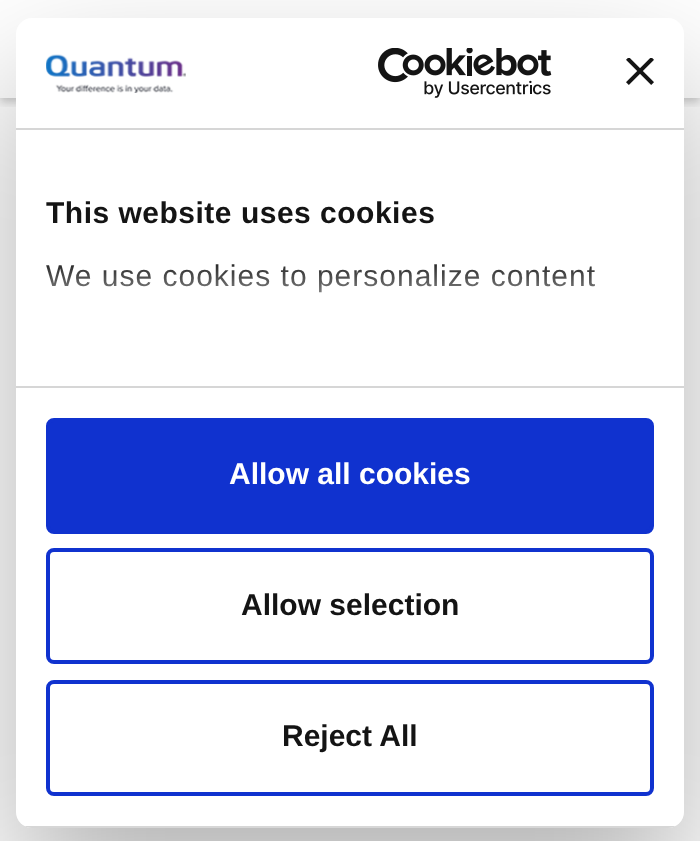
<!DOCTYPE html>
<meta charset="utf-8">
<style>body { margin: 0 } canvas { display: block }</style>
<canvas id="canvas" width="700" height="841"></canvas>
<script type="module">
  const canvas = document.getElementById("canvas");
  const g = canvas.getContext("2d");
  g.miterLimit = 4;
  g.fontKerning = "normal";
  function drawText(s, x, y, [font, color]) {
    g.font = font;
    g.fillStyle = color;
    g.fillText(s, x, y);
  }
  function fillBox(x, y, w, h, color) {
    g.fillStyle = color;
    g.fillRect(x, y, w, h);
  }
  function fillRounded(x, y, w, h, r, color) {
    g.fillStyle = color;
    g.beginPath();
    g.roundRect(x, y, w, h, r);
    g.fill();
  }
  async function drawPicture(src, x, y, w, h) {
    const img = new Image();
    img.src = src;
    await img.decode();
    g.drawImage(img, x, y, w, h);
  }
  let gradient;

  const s1 = ["bold 30px Liberation Sans", "#141414"];
  const s2 = ["30px Liberation Sans", "#141414"];
  const s3 = ["bold 30px Liberation Sans", "#FFFFFF"];

  fillBox(0, 0, 700, 841, "#FFFFFF");
  g.save();
  g.beginPath();
  g.rect(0, 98, 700, 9);
  g.clip();
  g.fillStyle = "rgba(0, 0, 0, 0.2)";
  g.filter = "blur(4px)";
  g.beginPath();
  g.rect(0, 4, 700, 98);
  g.fill();
  g.filter = "none";
  g.restore();
  g.fillStyle = "rgba(0, 0, 0, 0.3)";
  g.filter = "blur(68px)";
  g.beginPath();
  g.roundRect(16, 82, 668, 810, 16);
  g.fill();
  g.filter = "none";
  fillRounded(16, 18, 668, 810, 16, "#FFFFFF");
  fillBox(16, 128, 668, 2, "#D6D6D6");
  await drawPicture("pic1.png", 46, 54, 140, 39);
  await drawPicture("pic2.png", 378, 48, 174, 50);
  await drawPicture("pic3.png", 626, 58, 28, 27);
  fillBox(16, 386, 668, 2, "#D6D6D6");
  g.letterSpacing = "0.5px";
  drawText("This website uses cookies", 46, 223, s1);
  g.letterSpacing = "1px";
  drawText("We use cookies to personalize content", 46, 286, s2);
  gradient = g.createLinearGradient(337, 385, 337, 257);
  gradient.addColorStop(0, "#FFFFFF");
  gradient.addColorStop(0.5, "rgba(255, 255, 255, 0.8)");
  gradient.addColorStop(1, "rgba(255, 255, 255, 0)");
  g.fillStyle = gradient;
  g.fillRect(46, 264, 549, 29);
  g.save();
  g.beginPath();
  g.roundRect(16, 18, 668, 810, 16);
  g.clip();
  fillBox(16, 826, 668, 2, "#D6D6D6");
  g.restore();
  g.fillStyle = "#1032CF";
  g.beginPath();
  g.roundRect(48, 420, 604, 112, 6);
  g.fill();
  g.strokeStyle = "#1032CF";
  g.lineWidth = 4;
  g.stroke();
  g.letterSpacing = "0px";
  drawText("Allow all cookies", 229, 484, s3);
  g.beginPath();
  g.roundRect(48, 550, 604, 112, 6);
  g.stroke();
  drawText("Allow selection", 241, 615, s1);
  g.beginPath();
  g.roundRect(48, 682, 604, 112, 6);
  g.stroke();
  drawText("Reject All", 282, 746, s1);
</script>
